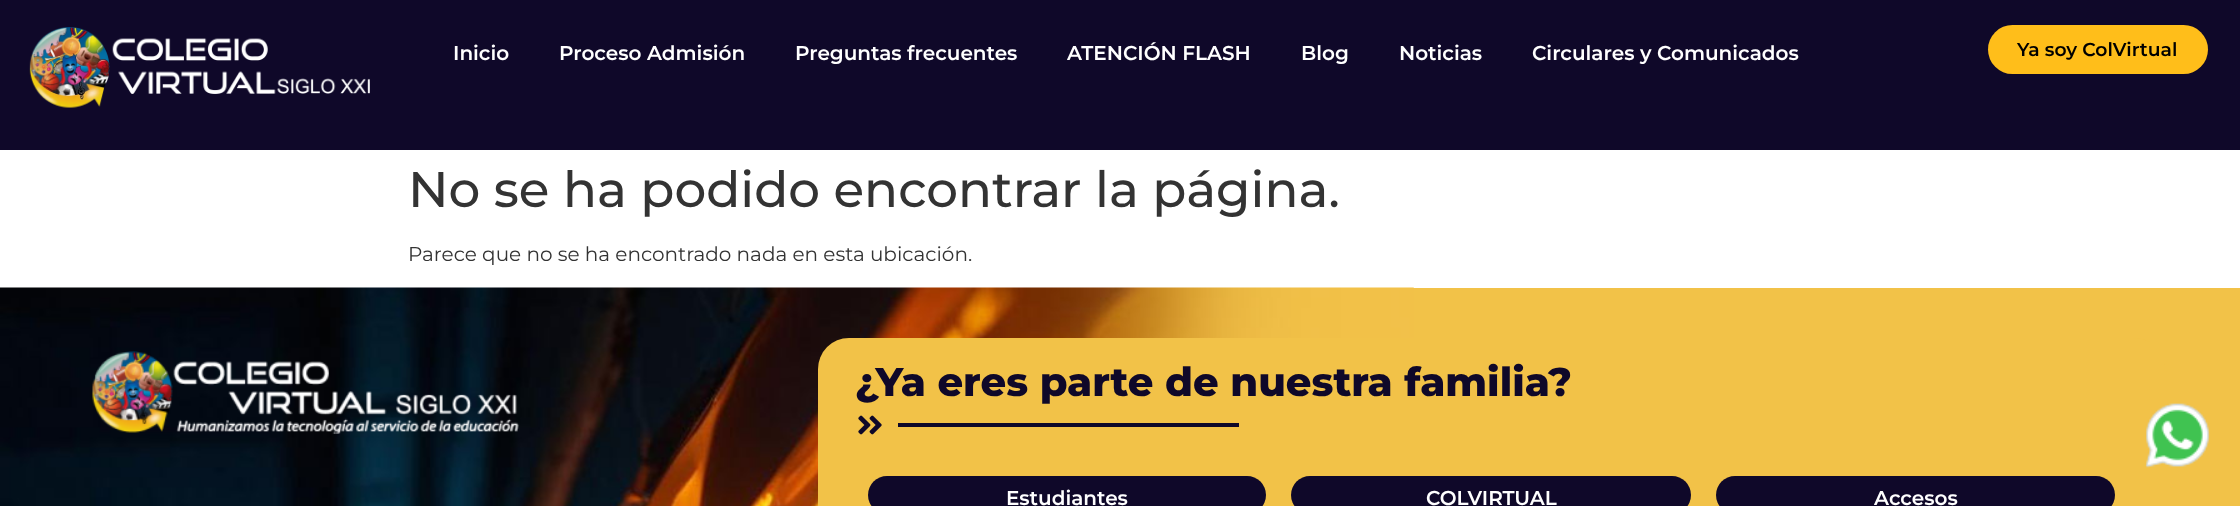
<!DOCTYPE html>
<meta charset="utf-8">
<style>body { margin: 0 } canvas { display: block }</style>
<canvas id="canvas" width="2240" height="506"></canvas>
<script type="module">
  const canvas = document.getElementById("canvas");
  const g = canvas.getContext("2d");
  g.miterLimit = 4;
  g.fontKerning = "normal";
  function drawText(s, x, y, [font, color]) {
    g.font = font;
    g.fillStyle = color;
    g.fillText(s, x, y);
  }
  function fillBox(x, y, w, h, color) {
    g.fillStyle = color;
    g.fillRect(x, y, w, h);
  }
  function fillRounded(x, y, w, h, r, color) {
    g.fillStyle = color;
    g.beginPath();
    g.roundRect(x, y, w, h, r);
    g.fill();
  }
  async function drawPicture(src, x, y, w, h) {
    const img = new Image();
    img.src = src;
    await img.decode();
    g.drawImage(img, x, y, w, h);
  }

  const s1 = ["600 20px Montserrat", "#FFFFFF"];
  const s2 = ["600 18.75px Montserrat", "#000000"];
  const s3 = ["500 50px Montserrat", "#333333"];
  const s4 = ["20px Montserrat", "#333333"];
  const s5 = ["800 40px Montserrat", "#0F0829"];

  fillBox(0, 0, 2240, 506, "#FFFFFF");
  fillBox(0, 0, 2240, 150, "#0F0829");
  await drawPicture("pic1.png", 29, 27, 341, 81);
  drawText("Inicio", 453, 60, s1);
  drawText("Proceso Admisión", 559, 60, s1);
  drawText("Preguntas frecuentes", 795, 60, s1);
  drawText("ATENCIÓN FLASH", 1067, 60, s1);
  drawText("Blog", 1301, 60, s1);
  drawText("Noticias", 1399, 60, s1);
  drawText("Circulares y Comunicados", 1532, 60, s1);
  fillRounded(1988, 25, 220, 49, 24.5, "#FFBE1A");
  drawText("Ya soy ColVirtual", 2017, 56, s2);
  drawText("No se ha podido encontrar la página.", 408, 207, s3);
  drawText("Parece que no se ha encontrado nada en esta ubicación.", 408, 261, s4);
  fillBox(1413, 288, 827, 218, "#F2C248");
  await drawPicture("pic2.png", 0, 287, 1414, 219);
  await drawPicture("pic3.png", 92, 351, 427, 83);
  fillRounded(818, 338, 1347, 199, 31, "#F2C248");
  drawText("¿Ya eres parte de nuestra familia?", 855, 396, s5);
  await drawPicture("pic4.png", 858, 415, 24, 20);
  fillBox(898, 423, 341, 4, "#0F0829");
  fillRounded(868, 476, 398, 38, 19, "#0F0829");
  drawText("Estudiantes", 1006, 505, s1);
  fillRounded(1291, 476, 400, 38, 19, "#0F0829");
  drawText("COLVIRTUAL", 1426, 505, s1);
  fillRounded(1716, 476, 399, 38, 19, "#0F0829");
  drawText("Accesos", 1874, 505, s1);
  await drawPicture("pic5.png", 2145, 403, 65, 65);
</script>
